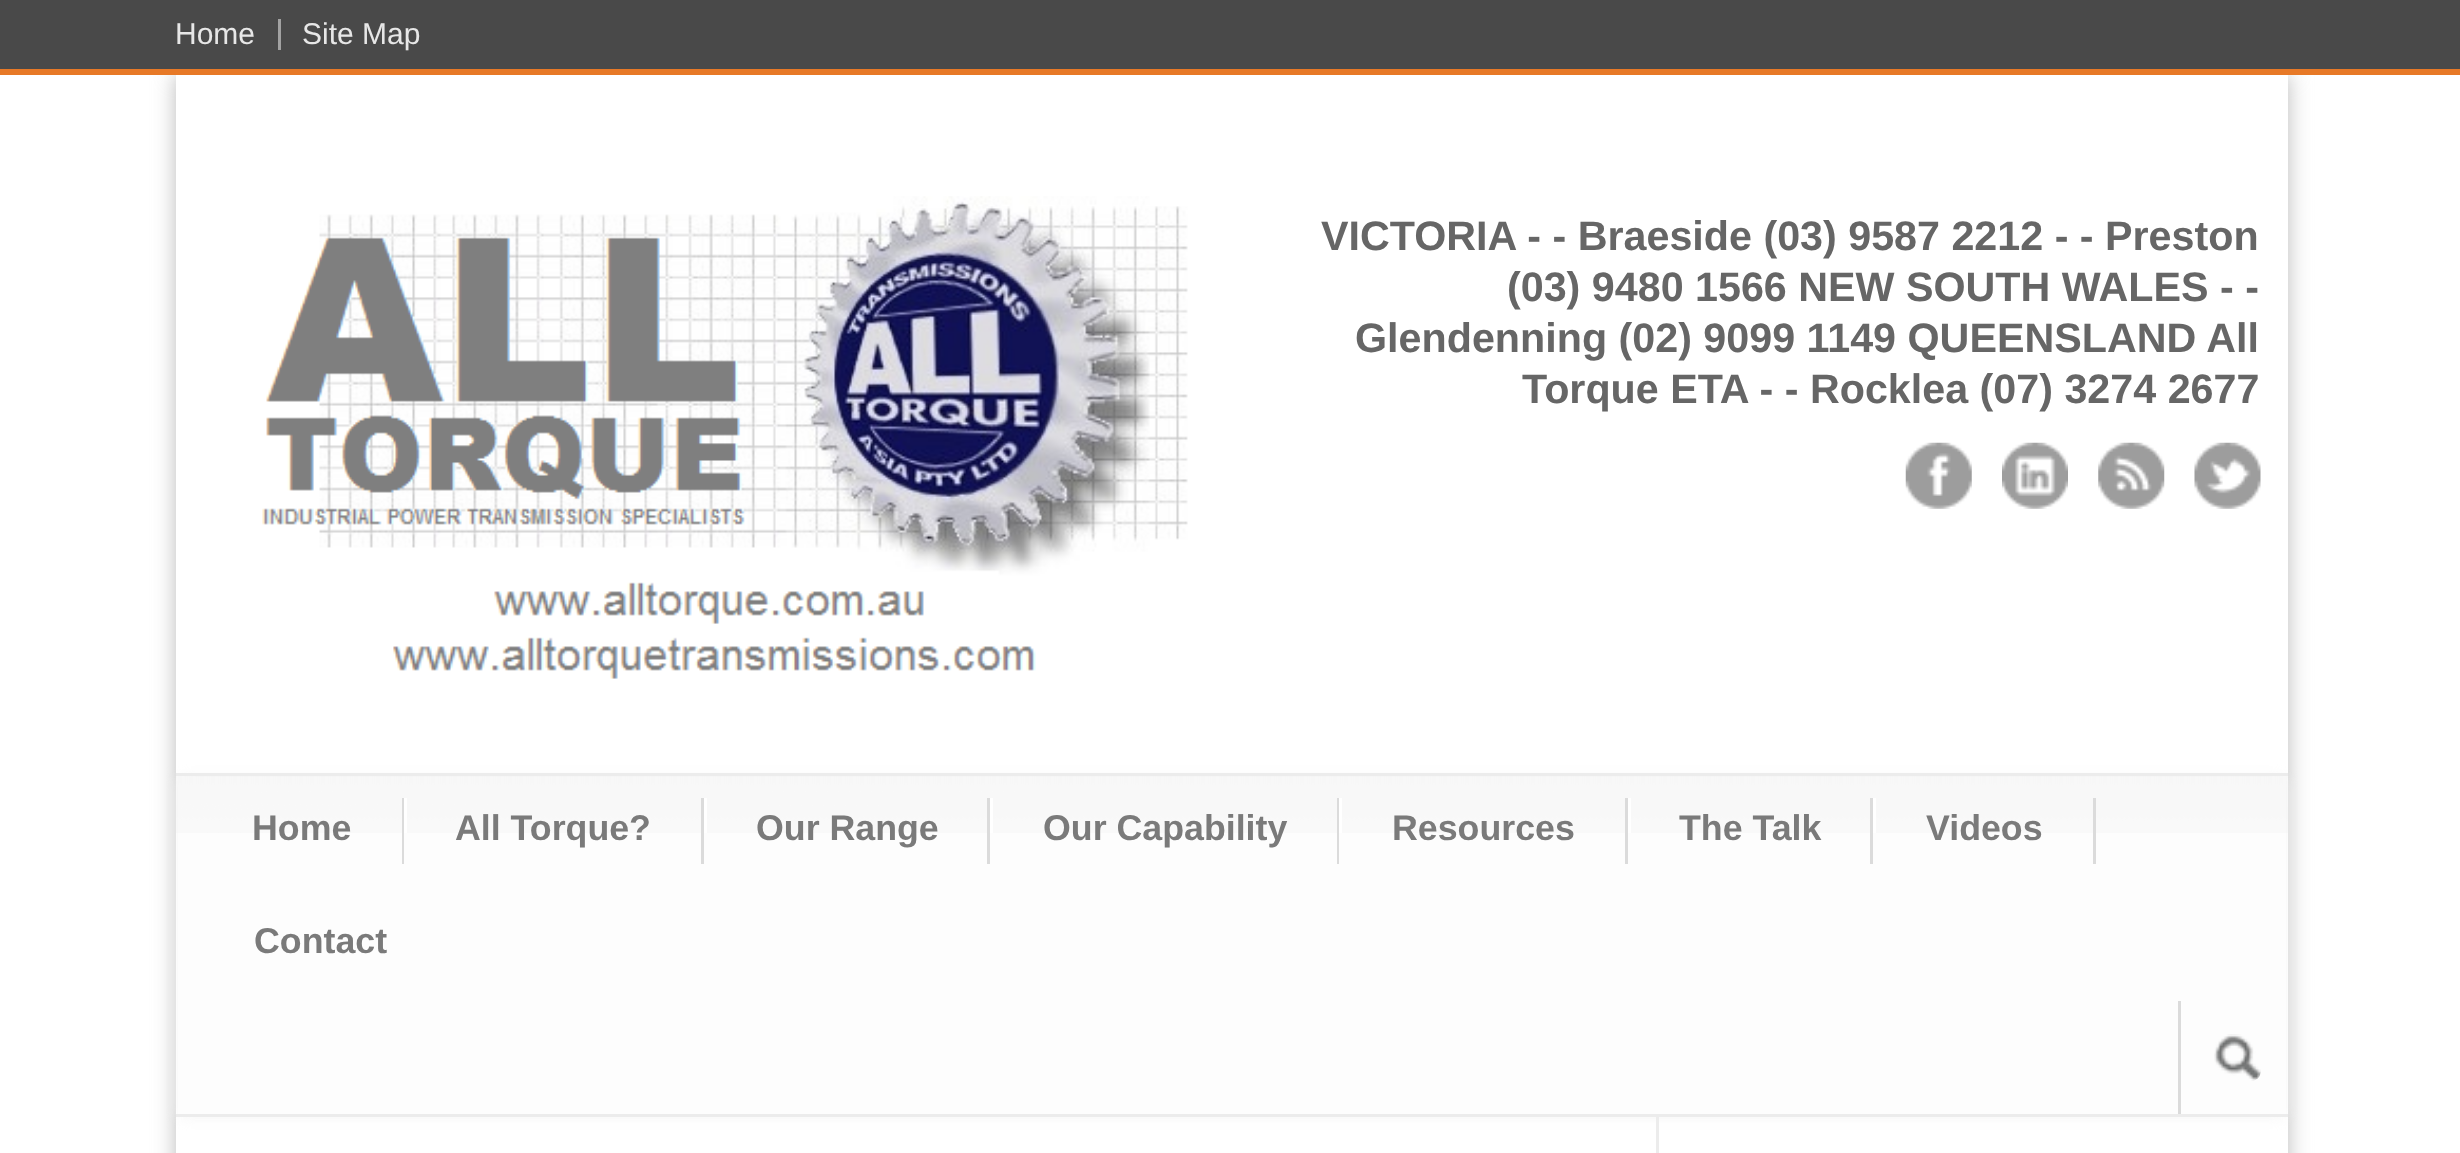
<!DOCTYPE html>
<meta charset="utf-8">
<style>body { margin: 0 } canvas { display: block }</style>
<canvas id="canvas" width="2460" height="1153"></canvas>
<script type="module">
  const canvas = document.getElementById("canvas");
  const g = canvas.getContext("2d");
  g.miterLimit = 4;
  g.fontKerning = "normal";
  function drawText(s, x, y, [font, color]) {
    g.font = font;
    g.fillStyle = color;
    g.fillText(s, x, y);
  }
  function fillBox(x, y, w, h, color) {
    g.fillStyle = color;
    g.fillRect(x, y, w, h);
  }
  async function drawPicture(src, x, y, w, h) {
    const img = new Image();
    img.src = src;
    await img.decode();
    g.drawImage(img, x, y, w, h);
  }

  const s1 = ["30px Liberation Sans", "#E7E7E7"];
  const s2 = ["bold 41.25px Liberation Sans", "#666666"];
  const s3 = ["bold 35.75px Liberation Sans", "#7A7A7A"];

  fillBox(0, 0, 2460, 1153, "#FFFFFF");
  g.fillStyle = "#BBBBBB";
  g.filter = "blur(11px)";
  g.beginPath();
  g.rect(176, 74, 2112, 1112);
  g.fill();
  g.filter = "none";
  fillBox(0, 0, 2460, 69, "#494949");
  fillBox(278, 19, 3, 31, "#A2A2A2");
  drawText("Home", 175, 44, s1);
  drawText("Site Map", 302, 44, s1);
  fillBox(0, 69, 2460, 6, "#E77927");
  fillBox(176, 75, 2112, 1078, "#FFFFFF");
  await drawPicture("pic1.png", 262, 196, 926, 483);
  drawText("VICTORIA - - Braeside (03) 9587 2212 - - Preston", 1321, 250, s2);
  drawText("(03) 9480 1566 NEW SOUTH WALES - -", 1507, 301, s2);
  drawText("Glendenning (02) 9099 1149 QUEENSLAND All", 1355, 352, s2);
  drawText("Torque ETA - - Rocklea (07) 3274 2677", 1522, 403, s2);
  await drawPicture("pic2.png", 1905, 442, 67, 67);
  await drawPicture("pic3.png", 2002, 442, 66, 67);
  await drawPicture("pic4.png", 2098, 442, 67, 67);
  await drawPicture("pic5.png", 2194, 442, 67, 67);
  g.fillStyle = "#F5F5F5";
  g.filter = "blur(7px)";
  g.beginPath();
  g.rect(179, 778, 2106, 339);
  g.fill();
  g.filter = "none";
  fillBox(178, 777, 2108, 337, "#FDFDFD");
  await drawPicture("pic6.png", 176, 776, 2112, 57);
  fillBox(176, 773, 2112, 3, "#ECECEC");
  fillBox(176, 1114, 2112, 3, "#ECECEC");
  fillBox(402, 798, 2, 66, "#DBDBDB");
  drawText("Home", 252, 840, s3);
  fillBox(701, 798, 3, 66, "#DBDBDB");
  fillBox(404, 798, 3, 35, "#FFFFFF");
  drawText("All Torque?", 455, 840, s3);
  fillBox(987, 798, 3, 66, "#DBDBDB");
  fillBox(704, 798, 3, 35, "#FFFFFF");
  drawText("Our Range", 756, 840, s3);
  fillBox(1337, 798, 2, 66, "#DBDBDB");
  fillBox(990, 798, 3, 35, "#FFFFFF");
  drawText("Our Capability", 1043, 840, s3);
  fillBox(1625, 798, 3, 66, "#DBDBDB");
  fillBox(1339, 798, 3, 35, "#FFFFFF");
  drawText("Resources", 1392, 840, s3);
  fillBox(1870, 798, 3, 66, "#DBDBDB");
  fillBox(1628, 798, 3, 35, "#FFFFFF");
  drawText("The Talk", 1679, 840, s3);
  fillBox(2093, 798, 3, 66, "#DBDBDB");
  fillBox(1873, 798, 3, 35, "#FFFFFF");
  drawText("Videos", 1926, 840, s3);
  drawText("Contact", 254, 953, s3);
  fillBox(2178, 1001, 3, 113, "#DBDBDB");
  await drawPicture("pic7.png", 2214, 1034, 47, 47);
  fillBox(1656, 1117, 3, 36, "#ECECEC");
</script>
